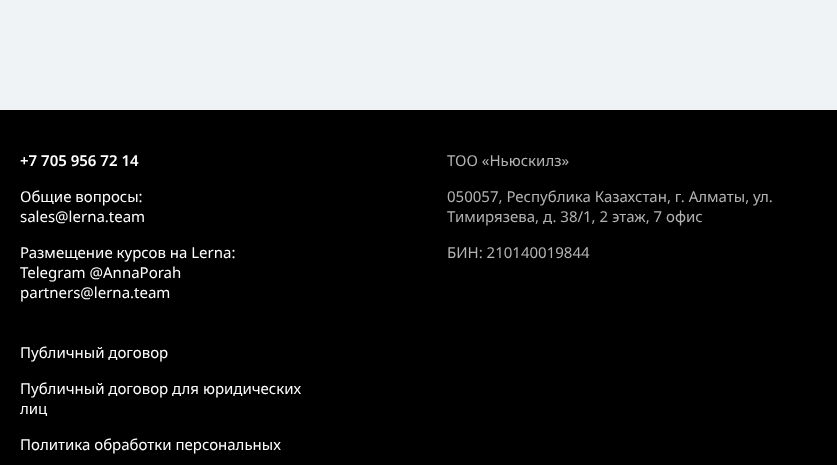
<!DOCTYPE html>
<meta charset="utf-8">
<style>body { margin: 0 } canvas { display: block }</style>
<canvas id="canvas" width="837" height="465"></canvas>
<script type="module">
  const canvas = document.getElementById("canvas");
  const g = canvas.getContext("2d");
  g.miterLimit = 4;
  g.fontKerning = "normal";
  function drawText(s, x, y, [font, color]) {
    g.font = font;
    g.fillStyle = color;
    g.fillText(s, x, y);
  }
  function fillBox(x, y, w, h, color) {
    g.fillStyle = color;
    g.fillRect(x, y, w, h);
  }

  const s1 = ["600 15px Noto Sans", "#FFFFFF"];
  const s2 = ["15px Noto Sans", "#FFFFFF"];
  const s3 = ["15px Noto Sans", "#B3B3B3"];

  fillBox(0, 0, 837, 465, "#F0F3F6");
  fillBox(0, 110, 837, 355, "#000000");
  drawText("+7 705 956 72 14", 20, 166, s1);
  drawText("Общие вопросы:", 20, 202, s2);
  drawText("sales@lerna.team", 20, 222, s2);
  drawText("Размещение курсов на Lerna:", 20, 258, s2);
  drawText("Telegram @AnnaPorah", 20, 278, s2);
  drawText("partners@lerna.team", 20, 298, s2);
  drawText("Публичный договор", 20, 358, s2);
  drawText("Публичный договор для юридических", 20, 394, s2);
  drawText("лиц", 20, 414, s2);
  drawText("Политика обработки персональных", 20, 450, s2);
  drawText("ТОО «Ньюскилз»", 447, 166, s3);
  drawText("050057, Республика Казахстан, г. Алматы, ул.", 447, 202, s3);
  drawText("Тимирязева, д. 38/1, 2 этаж, 7 офис", 447, 222, s3);
  drawText("БИН: 210140019844", 447, 258, s3);
</script>
